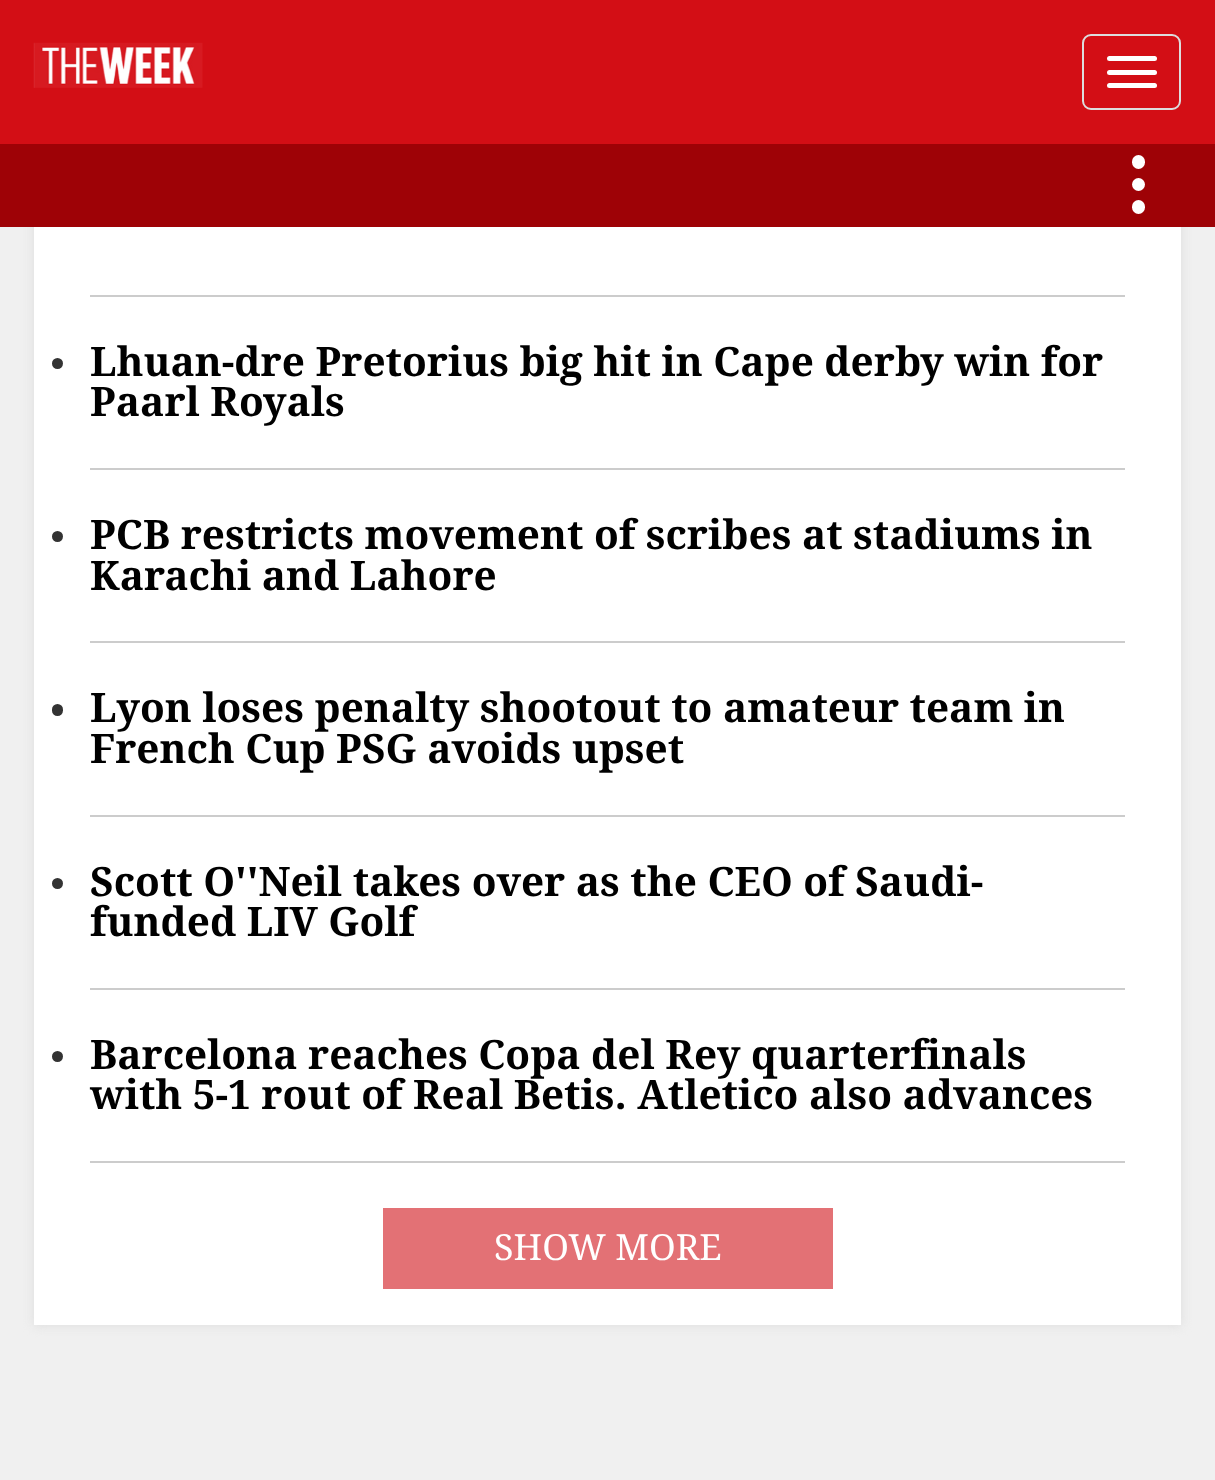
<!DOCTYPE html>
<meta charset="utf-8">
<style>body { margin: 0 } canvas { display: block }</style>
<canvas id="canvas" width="1215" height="1480"></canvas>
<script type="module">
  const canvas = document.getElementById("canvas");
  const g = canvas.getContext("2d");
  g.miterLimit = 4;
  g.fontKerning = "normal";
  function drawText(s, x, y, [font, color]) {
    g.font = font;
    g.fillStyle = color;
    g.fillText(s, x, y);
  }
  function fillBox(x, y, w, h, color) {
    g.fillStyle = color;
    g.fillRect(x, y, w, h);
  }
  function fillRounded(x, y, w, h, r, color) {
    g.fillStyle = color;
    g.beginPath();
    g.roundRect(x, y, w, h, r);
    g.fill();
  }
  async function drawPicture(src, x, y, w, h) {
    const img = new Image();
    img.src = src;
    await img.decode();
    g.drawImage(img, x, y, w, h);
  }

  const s1 = ["bold 40.5px Droid Serif", "#000000"];
  const s2 = ["36px Droid Serif", "#FFFFFF"];

  fillBox(0, 0, 1215, 1480, "#F0F0F0");
  g.fillStyle = "#DBDBDB";
  g.filter = "blur(5.5px)";
  g.beginPath();
  g.rect(34, -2, 1147, 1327);
  g.fill();
  g.filter = "none";
  fillBox(0, 0, 1215, 144, "#D30E15");
  await drawPicture("pic1.png", 33, 42, 170, 46);
  g.beginPath();
  g.roundRect(1083, 35, 97, 74, 8);
  g.strokeStyle = "#DDDDDD";
  g.lineWidth = 2;
  g.stroke();
  fillRounded(1107, 56, 50, 5, 2.5, "#FFFFFF");
  fillRounded(1107, 70, 50, 5, 2.5, "#FFFFFF");
  fillRounded(1107, 83, 50, 5, 2.5, "#FFFFFF");
  fillBox(0, 144, 1215, 83, "#9E0206");
  g.fillStyle = "#FFFFFF";
  g.beginPath();
  g.arc(1138.5, 184.5, 6.5, 0, Math.PI * 2);
  g.fill();
  fillRounded(1132, 155, 13, 14, 6.5, "#FFFFFF");
  fillRounded(1132, 200, 13, 14, 6.5, "#FFFFFF");
  fillBox(34, 227, 1147, 1098, "#FFFFFF");
  fillBox(90, 295, 1035, 2, "#CCCCCC");
  fillBox(90, 468, 1035, 2, "#CCCCCC");
  g.fillStyle = "#333333";
  g.beginPath();
  g.arc(57.5, 363.5, 5.5, 0, Math.PI * 2);
  g.fill();
  drawText("Lhuan-dre Pretorius big hit in Cape derby win for", 90, 376, s1);
  drawText("Paarl Royals", 90, 416, s1);
  fillBox(90, 641, 1035, 2, "#CCCCCC");
  g.fillStyle = "#333333";
  g.beginPath();
  g.arc(57.5, 536.5, 5.5, 0, Math.PI * 2);
  g.fill();
  drawText("PCB restricts movement of scribes at stadiums in", 90, 549, s1);
  drawText("Karachi and Lahore", 90, 590, s1);
  fillBox(90, 815, 1035, 2, "#CCCCCC");
  fillRounded(52, 704, 11, 12, 5.5, "#333333");
  drawText("Lyon loses penalty shootout to amateur team in", 90, 722, s1);
  drawText("French Cup PSG avoids upset", 90, 763, s1);
  fillBox(90, 988, 1035, 2, "#CCCCCC");
  g.fillStyle = "#333333";
  g.beginPath();
  g.arc(57.5, 883.5, 5.5, 0, Math.PI * 2);
  g.fill();
  drawText("Scott O''Neil takes over as the CEO of Saudi-", 90, 896, s1);
  drawText("funded LIV Golf", 90, 936, s1);
  fillBox(90, 1161, 1035, 2, "#CCCCCC");
  g.fillStyle = "#333333";
  g.beginPath();
  g.arc(57.5, 1056.5, 5.5, 0, Math.PI * 2);
  g.fill();
  drawText("Barcelona reaches Copa del Rey quarterfinals", 90, 1069, s1);
  drawText("with 5-1 rout of Real Betis. Atletico also advances", 90, 1109, s1);
  fillBox(383, 1208, 450, 81, "#E37175");
  drawText("SHOW MORE", 494, 1260, s2);
</script>
